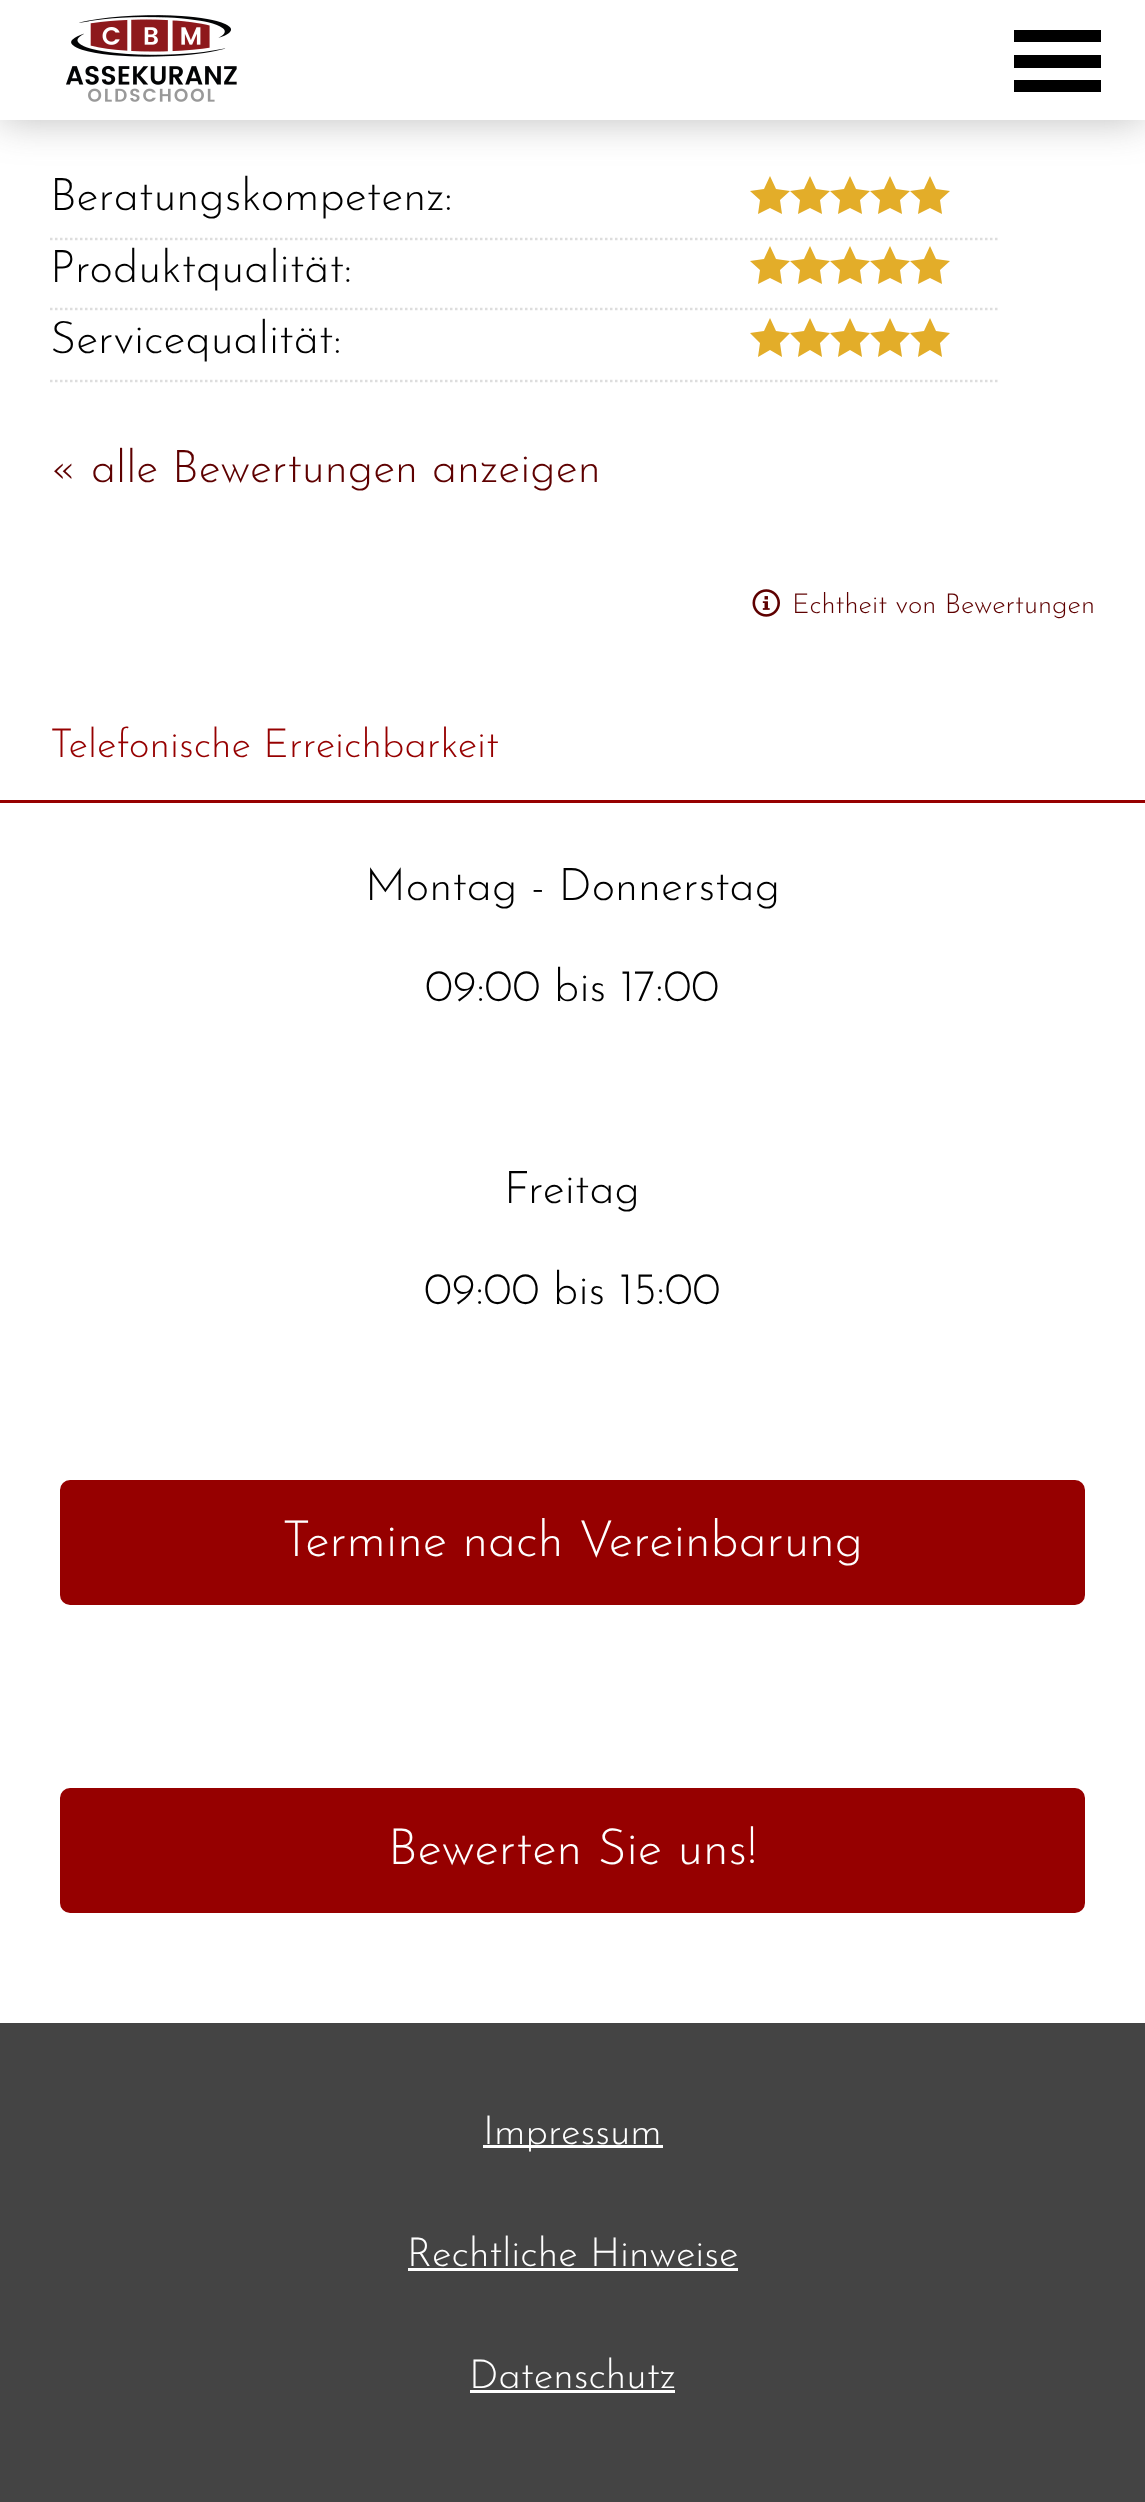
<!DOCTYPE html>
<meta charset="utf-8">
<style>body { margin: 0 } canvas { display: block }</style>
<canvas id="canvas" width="1145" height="2502"></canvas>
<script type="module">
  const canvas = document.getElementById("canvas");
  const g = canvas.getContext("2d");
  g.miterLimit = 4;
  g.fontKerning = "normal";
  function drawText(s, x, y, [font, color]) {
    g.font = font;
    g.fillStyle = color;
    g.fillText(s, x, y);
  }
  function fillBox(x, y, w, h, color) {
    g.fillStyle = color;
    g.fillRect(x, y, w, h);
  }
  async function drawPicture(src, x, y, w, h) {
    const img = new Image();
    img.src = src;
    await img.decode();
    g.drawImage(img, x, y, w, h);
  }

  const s1 = ["100 45px Josefin Sans", "#000000"];
  const s2 = ["100 45px Josefin Sans", "#5E0000"];
  const s3 = ["100 27.5px Josefin Sans", "#5E0000"];
  const s4 = ["100 40px Josefin Sans", "#960000"];
  const s5 = ["100 50px Josefin Sans", "#FFFFFF"];
  const s6 = ["100 40px Josefin Sans", "#FFFFFF"];

  fillBox(0, 0, 1145, 2502, "#FFFFFF");
  g.fillStyle = "#E3AD29";
  g.beginPath();
  g.moveTo(790, 191);
  g.lineTo(776, 189);
  g.lineTo(770, 176);
  g.lineTo(764, 189);
  g.lineTo(750, 191);
  g.lineTo(760, 200);
  g.lineTo(758, 214);
  g.lineTo(770, 208);
  g.lineTo(782, 214);
  g.lineTo(780, 200);
  g.closePath();
  g.fill();
  g.beginPath();
  g.moveTo(830, 191);
  g.lineTo(816, 189);
  g.lineTo(810, 176);
  g.lineTo(804, 189);
  g.lineTo(790, 191);
  g.lineTo(800, 200);
  g.lineTo(798, 214);
  g.lineTo(810, 208);
  g.lineTo(822, 214);
  g.lineTo(820, 200);
  g.closePath();
  g.fill();
  g.beginPath();
  g.moveTo(870, 191);
  g.lineTo(856, 189);
  g.lineTo(850, 176);
  g.lineTo(844, 189);
  g.lineTo(830, 191);
  g.lineTo(840, 200);
  g.lineTo(838, 214);
  g.lineTo(850, 208);
  g.lineTo(862, 214);
  g.lineTo(860, 200);
  g.closePath();
  g.fill();
  g.beginPath();
  g.moveTo(910, 191);
  g.lineTo(896, 189);
  g.lineTo(890, 176);
  g.lineTo(884, 189);
  g.lineTo(870, 191);
  g.lineTo(880, 200);
  g.lineTo(878, 214);
  g.lineTo(890, 208);
  g.lineTo(902, 214);
  g.lineTo(900, 200);
  g.closePath();
  g.fill();
  g.beginPath();
  g.moveTo(950, 191);
  g.lineTo(936, 189);
  g.lineTo(930, 176);
  g.lineTo(924, 189);
  g.lineTo(910, 191);
  g.lineTo(920, 200);
  g.lineTo(918, 214);
  g.lineTo(930, 208);
  g.lineTo(942, 214);
  g.lineTo(940, 200);
  g.closePath();
  g.fill();
  g.fillStyle = "rgba(90, 90, 90, 0.4)";
  g.filter = "blur(20px)";
  g.beginPath();
  g.rect(0, 0, 1145, 120);
  g.fill();
  g.filter = "none";
  fillBox(0, 0, 1145, 120, "#FFFFFF");
  await drawPicture("pic1.png", 66, 15, 171, 87);
  g.fillStyle = "#000000";
  g.beginPath();
  g.moveTo(1014, 30);
  g.lineTo(1101, 30);
  g.lineTo(1101, 42);
  g.lineTo(1014, 42);
  g.closePath();
  g.moveTo(1014, 55);
  g.lineTo(1101, 55);
  g.lineTo(1101, 68);
  g.lineTo(1014, 68);
  g.closePath();
  g.moveTo(1014, 80);
  g.lineTo(1101, 80);
  g.lineTo(1101, 92);
  g.lineTo(1014, 92);
  g.closePath();
  g.fill();
  g.beginPath();
  g.moveTo(50, 239);
  g.lineTo(1000, 239);
  g.strokeStyle = "#DDDDDD";
  g.lineWidth = 2.5;
  g.setLineDash([2.5, 2.5]);
  g.stroke();
  drawText("Beratungskompetenz:", 50, 210, s1);
  g.beginPath();
  g.moveTo(50, 309);
  g.lineTo(1000, 309);
  g.stroke();
  drawText("Produktqualität:", 50, 282, s1);
  g.fillStyle = "#E3AD29";
  g.beginPath();
  g.moveTo(790, 261);
  g.lineTo(776, 259);
  g.lineTo(770, 246);
  g.lineTo(764, 259);
  g.lineTo(750, 261);
  g.lineTo(760, 270);
  g.lineTo(758, 284);
  g.lineTo(770, 278);
  g.lineTo(782, 284);
  g.lineTo(780, 270);
  g.closePath();
  g.fill();
  g.beginPath();
  g.moveTo(830, 261);
  g.lineTo(816, 259);
  g.lineTo(810, 246);
  g.lineTo(804, 259);
  g.lineTo(790, 261);
  g.lineTo(800, 270);
  g.lineTo(798, 284);
  g.lineTo(810, 278);
  g.lineTo(822, 284);
  g.lineTo(820, 270);
  g.closePath();
  g.fill();
  g.beginPath();
  g.moveTo(870, 261);
  g.lineTo(856, 259);
  g.lineTo(850, 246);
  g.lineTo(844, 259);
  g.lineTo(830, 261);
  g.lineTo(840, 270);
  g.lineTo(838, 284);
  g.lineTo(850, 278);
  g.lineTo(862, 284);
  g.lineTo(860, 270);
  g.closePath();
  g.fill();
  g.beginPath();
  g.moveTo(910, 261);
  g.lineTo(896, 259);
  g.lineTo(890, 246);
  g.lineTo(884, 259);
  g.lineTo(870, 261);
  g.lineTo(880, 270);
  g.lineTo(878, 284);
  g.lineTo(890, 278);
  g.lineTo(902, 284);
  g.lineTo(900, 270);
  g.closePath();
  g.fill();
  g.beginPath();
  g.moveTo(950, 261);
  g.lineTo(936, 259);
  g.lineTo(930, 246);
  g.lineTo(924, 259);
  g.lineTo(910, 261);
  g.lineTo(920, 270);
  g.lineTo(918, 284);
  g.lineTo(930, 278);
  g.lineTo(942, 284);
  g.lineTo(940, 270);
  g.closePath();
  g.fill();
  g.beginPath();
  g.moveTo(50, 381);
  g.lineTo(1000, 381);
  g.stroke();
  drawText("Servicequalität:", 50, 353, s1);
  g.fillStyle = "#E3AD29";
  g.beginPath();
  g.moveTo(790, 333);
  g.lineTo(776, 331);
  g.lineTo(770, 318);
  g.lineTo(764, 331);
  g.lineTo(750, 333);
  g.lineTo(760, 343);
  g.lineTo(758, 357);
  g.lineTo(770, 350);
  g.lineTo(782, 357);
  g.lineTo(780, 343);
  g.closePath();
  g.fill();
  g.beginPath();
  g.moveTo(830, 333);
  g.lineTo(816, 331);
  g.lineTo(810, 318);
  g.lineTo(804, 331);
  g.lineTo(790, 333);
  g.lineTo(800, 343);
  g.lineTo(798, 357);
  g.lineTo(810, 350);
  g.lineTo(822, 357);
  g.lineTo(820, 343);
  g.closePath();
  g.fill();
  g.beginPath();
  g.moveTo(870, 333);
  g.lineTo(856, 331);
  g.lineTo(850, 318);
  g.lineTo(844, 331);
  g.lineTo(830, 333);
  g.lineTo(840, 343);
  g.lineTo(838, 357);
  g.lineTo(850, 350);
  g.lineTo(862, 357);
  g.lineTo(860, 343);
  g.closePath();
  g.fill();
  g.beginPath();
  g.moveTo(910, 333);
  g.lineTo(896, 331);
  g.lineTo(890, 318);
  g.lineTo(884, 331);
  g.lineTo(870, 333);
  g.lineTo(880, 343);
  g.lineTo(878, 357);
  g.lineTo(890, 350);
  g.lineTo(902, 357);
  g.lineTo(900, 343);
  g.closePath();
  g.fill();
  g.beginPath();
  g.moveTo(950, 333);
  g.lineTo(936, 331);
  g.lineTo(930, 318);
  g.lineTo(924, 331);
  g.lineTo(910, 333);
  g.lineTo(920, 343);
  g.lineTo(918, 357);
  g.lineTo(930, 350);
  g.lineTo(942, 357);
  g.lineTo(940, 343);
  g.closePath();
  g.fill();
  drawText("« alle Bewertungen anzeigen", 50, 482, s2);
  await drawPicture("pic2.png", 752, 589, 28, 28);
  drawText("Echtheit von Bewertungen", 792, 613, s3);
  fillBox(0, 800, 1145, 3, "#960000");
  drawText("Telefonische Erreichbarkeit", 50, 757, s4);
  drawText("Montag - Donnerstag", 365, 900, s1);
  drawText("09:00 bis 17:00", 425, 1001, s1);
  drawText("Freitag", 504, 1203, s1);
  drawText("09:00 bis 15:00", 424, 1304, s1);
  g.fillStyle = "#960000";
  g.beginPath();
  g.roundRect(61.5, 1481.5, 1022, 122, 8.5);
  g.fill();
  g.strokeStyle = "#960000";
  g.lineWidth = 3;
  g.setLineDash([]);
  g.stroke();
  drawText("Termine nach Vereinbarung", 282, 1556, s5);
  g.fillStyle = "#960000";
  g.beginPath();
  g.roundRect(61.5, 1789.5, 1022, 122, 8.5);
  g.fill();
  g.stroke();
  drawText("Bewerten Sie uns!", 388, 1864, s5);
  fillBox(0, 2023, 1145, 479, "#444444");
  fillBox(483, 2145, 180, 3, "#FFFFFF");
  drawText("Impressum", 483, 2144, s6);
  drawText("Rechtliche Hinweise", 407, 2266, s6);
  fillBox(408, 2268, 330, 3, "#FFFFFF");
  drawText("Datenschutz", 469, 2388, s6);
  fillBox(470, 2390, 205, 3, "#FFFFFF");
</script>
